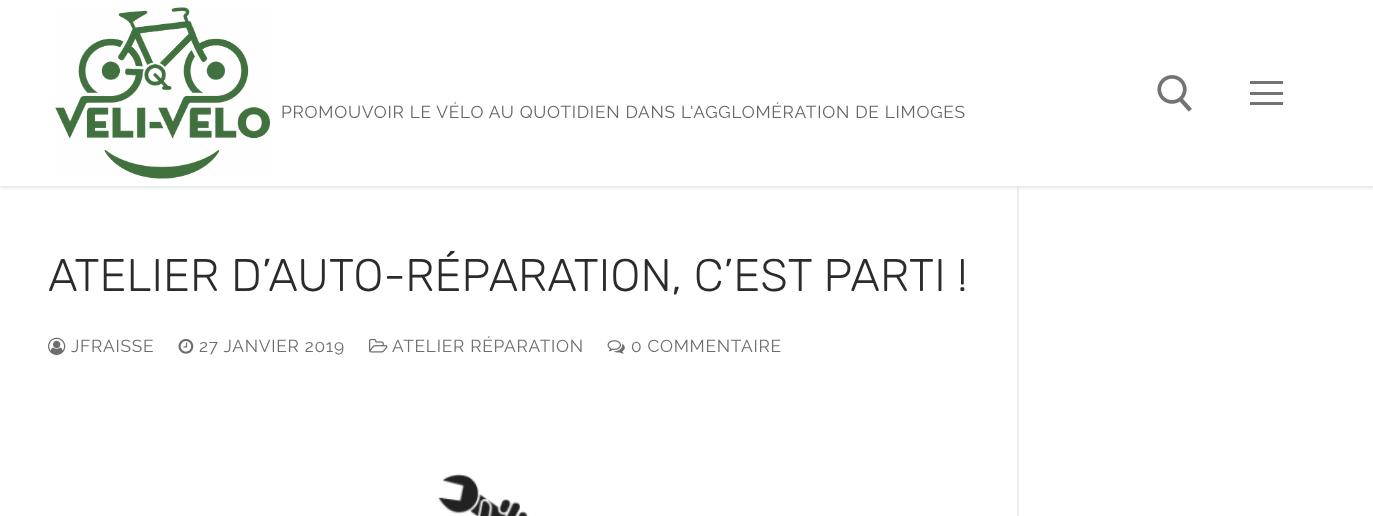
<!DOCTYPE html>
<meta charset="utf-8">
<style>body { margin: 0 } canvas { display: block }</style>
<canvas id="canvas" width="1373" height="516"></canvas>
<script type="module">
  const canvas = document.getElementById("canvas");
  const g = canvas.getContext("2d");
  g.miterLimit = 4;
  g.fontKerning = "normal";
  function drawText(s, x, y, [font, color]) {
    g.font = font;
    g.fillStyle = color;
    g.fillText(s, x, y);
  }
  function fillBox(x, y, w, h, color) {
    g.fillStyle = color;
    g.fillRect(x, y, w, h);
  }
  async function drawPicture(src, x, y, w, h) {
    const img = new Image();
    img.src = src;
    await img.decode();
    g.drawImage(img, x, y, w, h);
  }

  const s1 = ["17.3px Raleway", "#666666"];
  const s2 = ["300 45.6px Rubik", "#2B2B2B"];
  const s3 = ["17.3px Raleway", "#6D6D6D"];

  fillBox(0, 0, 1373, 516, "#FFFFFF");
  fillBox(1017, 186, 2, 330, "#EAECEE");
  g.save();
  g.beginPath();
  g.rect(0, 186, 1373, 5);
  g.clip();
  g.fillStyle = "#E1E5EA";
  g.filter = "blur(1.5px)";
  g.beginPath();
  g.rect(0, 2, 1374, 186);
  g.fill();
  g.filter = "none";
  g.restore();
  await drawPicture("pic1.png", 55, 7, 215, 172);
  g.letterSpacing = "0.75px";
  drawText("PROMOUVOIR LE VÉLO AU QUOTIDIEN DANS L'AGGLOMÉRATION DE LIMOGES", 281, 118, s1);
  await drawPicture("pic2.png", 1157, 75, 35, 37);
  fillBox(1250, 92, 33, 3, "#737373");
  fillBox(1250, 81, 33, 3, "#737373");
  fillBox(1250, 102, 33, 3, "#737373");
  g.letterSpacing = "0px";
  drawText("ATELIER D’AUTO-RÉPARATION, C’EST PARTI !", 48, 291, s2);
  await drawPicture("pic3.png", 48, 337, 18, 18);
  g.letterSpacing = "0.75px";
  drawText("JFRAISSE", 71, 352, s3);
  await drawPicture("pic4.png", 178, 338, 16, 16);
  drawText("27 JANVIER 2019", 199, 352, s3);
  await drawPicture("pic5.png", 369, 338, 19, 15);
  drawText("ATELIER RÉPARATION", 392, 352, s3);
  await drawPicture("pic6.png", 607, 340, 18, 14);
  drawText("0 COMMENTAIRE", 631, 352, s3);
  await drawPicture("pic7.png", 438, 474, 91, 42);
</script>
